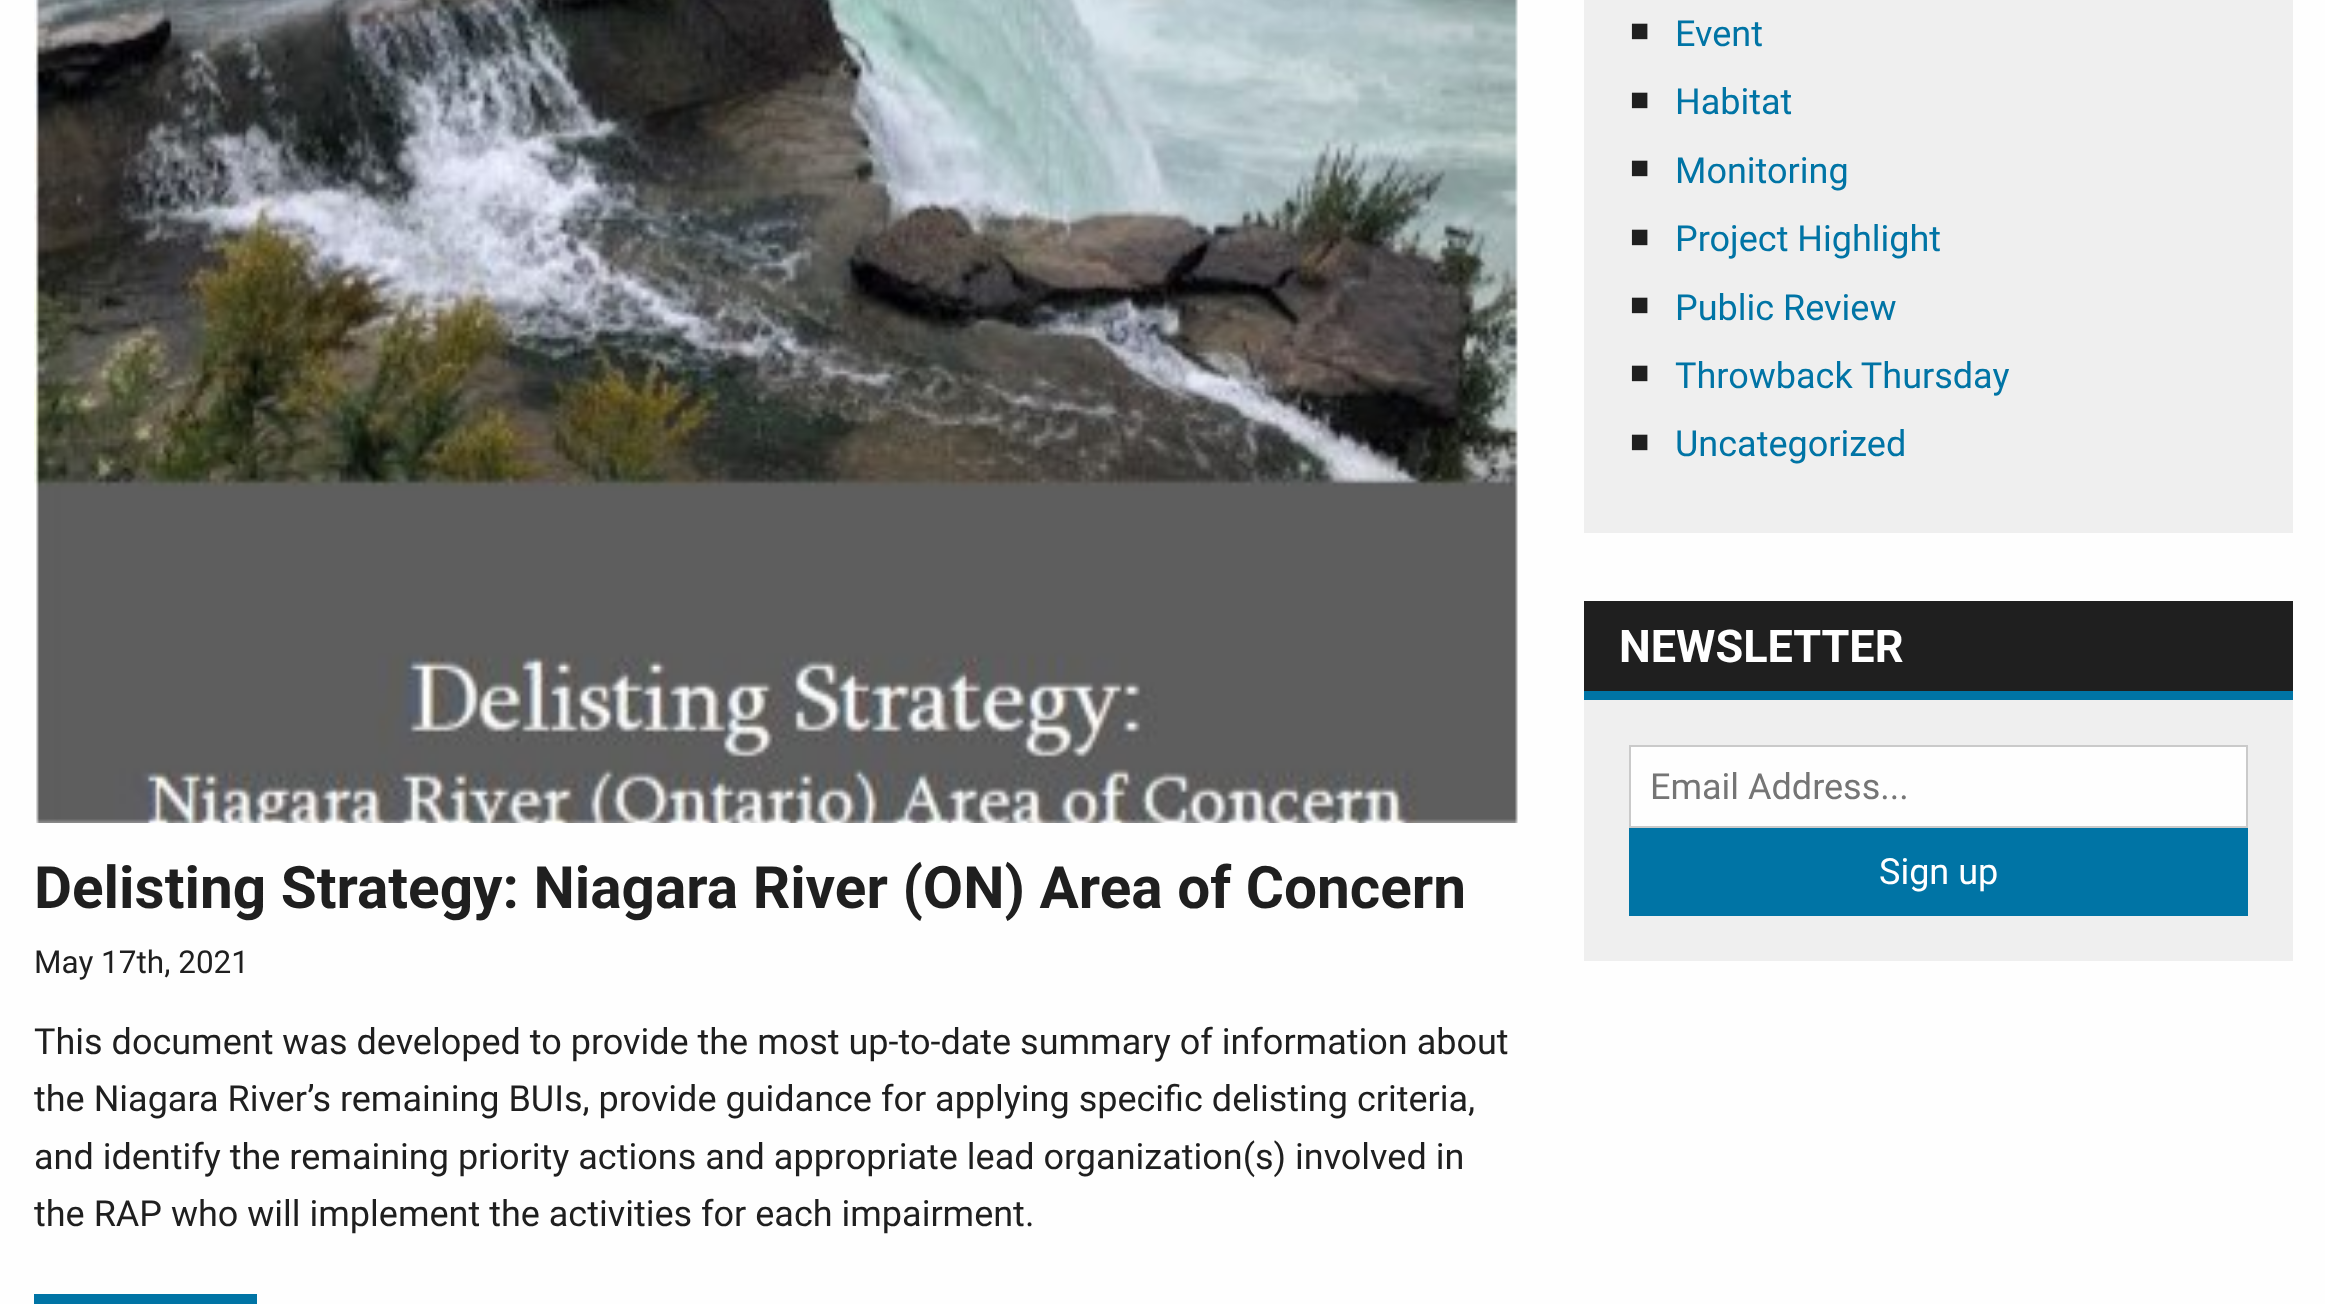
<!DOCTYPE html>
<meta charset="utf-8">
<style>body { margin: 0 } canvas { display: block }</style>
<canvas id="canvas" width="2325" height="1304"></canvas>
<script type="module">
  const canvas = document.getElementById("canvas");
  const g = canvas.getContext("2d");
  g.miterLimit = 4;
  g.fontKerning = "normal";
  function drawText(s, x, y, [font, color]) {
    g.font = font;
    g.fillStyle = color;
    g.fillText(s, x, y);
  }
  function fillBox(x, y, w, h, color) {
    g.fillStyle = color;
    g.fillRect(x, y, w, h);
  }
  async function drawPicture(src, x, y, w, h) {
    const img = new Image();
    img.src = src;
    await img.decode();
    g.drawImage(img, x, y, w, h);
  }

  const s1 = ["32px Liberation Sans", "#1F1F1F"];
  const s2 = ["36px Roboto", "#0074A5"];
  const s3 = ["bold 45px Roboto", "#FFFFFF"];
  const s4 = ["36px Roboto", "#757575"];
  const s5 = ["36px Roboto", "#FFFFFF"];
  const s6 = ["bold 58.5px Roboto", "#1F1F1F"];
  const s7 = ["31.5px Roboto", "#1F1F1F"];
  const s8 = ["36px Roboto", "#1F1F1F"];

  fillBox(0, 0, 2325, 1304, "#FEFEFE");
  fillBox(1584, 0, 709, 533, "#EFEFEF");
  drawText("■", 1630, 41, s1);
  drawText("Event", 1675, 46, s2);
  drawText("■", 1630, 110, s1);
  drawText("Habitat", 1675, 114, s2);
  drawText("■", 1630, 178, s1);
  drawText("Monitoring", 1675, 183, s2);
  drawText("■", 1630, 247, s1);
  drawText("Project Highlight", 1675, 251, s2);
  drawText("■", 1630, 315, s1);
  drawText("Public Review", 1675, 320, s2);
  drawText("■", 1630, 383, s1);
  drawText("Throwback Thursday", 1675, 388, s2);
  drawText("■", 1630, 452, s1);
  drawText("Uncategorized", 1675, 456, s2);
  fillBox(1584, 601, 709, 90, "#1F1F1F");
  fillBox(1584, 691, 709, 9, "#0074A5");
  drawText("NEWSLETTER", 1619, 662, s3);
  fillBox(1584, 700, 709, 261, "#EFEFEF");
  g.fillStyle = "#FEFEFE";
  g.beginPath();
  g.rect(1630, 746, 617, 81);
  g.fill();
  g.strokeStyle = "#CACACA";
  g.lineWidth = 2;
  g.stroke();
  drawText("Email Address...", 1650, 799, s4);
  fillBox(1629, 828, 619, 88, "#0074A5");
  drawText("Sign up", 1879, 884, s5);
  await drawPicture("pic1.png", 34, 0, 1484, 823);
  drawText("Delisting Strategy: Niagara River (ON) Area of Concern", 34, 908, s6);
  drawText("May 17th, 2021", 34, 973, s7);
  drawText("This document was developed to provide the most up-to-date summary of information about", 34, 1054, s8);
  drawText("the Niagara River’s remaining BUIs, provide guidance for applying specific delisting criteria,", 34, 1111, s8);
  drawText("and identify the remaining priority actions and appropriate lead organization(s) involved in", 34, 1169, s8);
  drawText("the RAP who will implement the activities for each impairment.", 34, 1226, s8);
  fillBox(34, 1294, 223, 10, "#0074A5");
</script>
